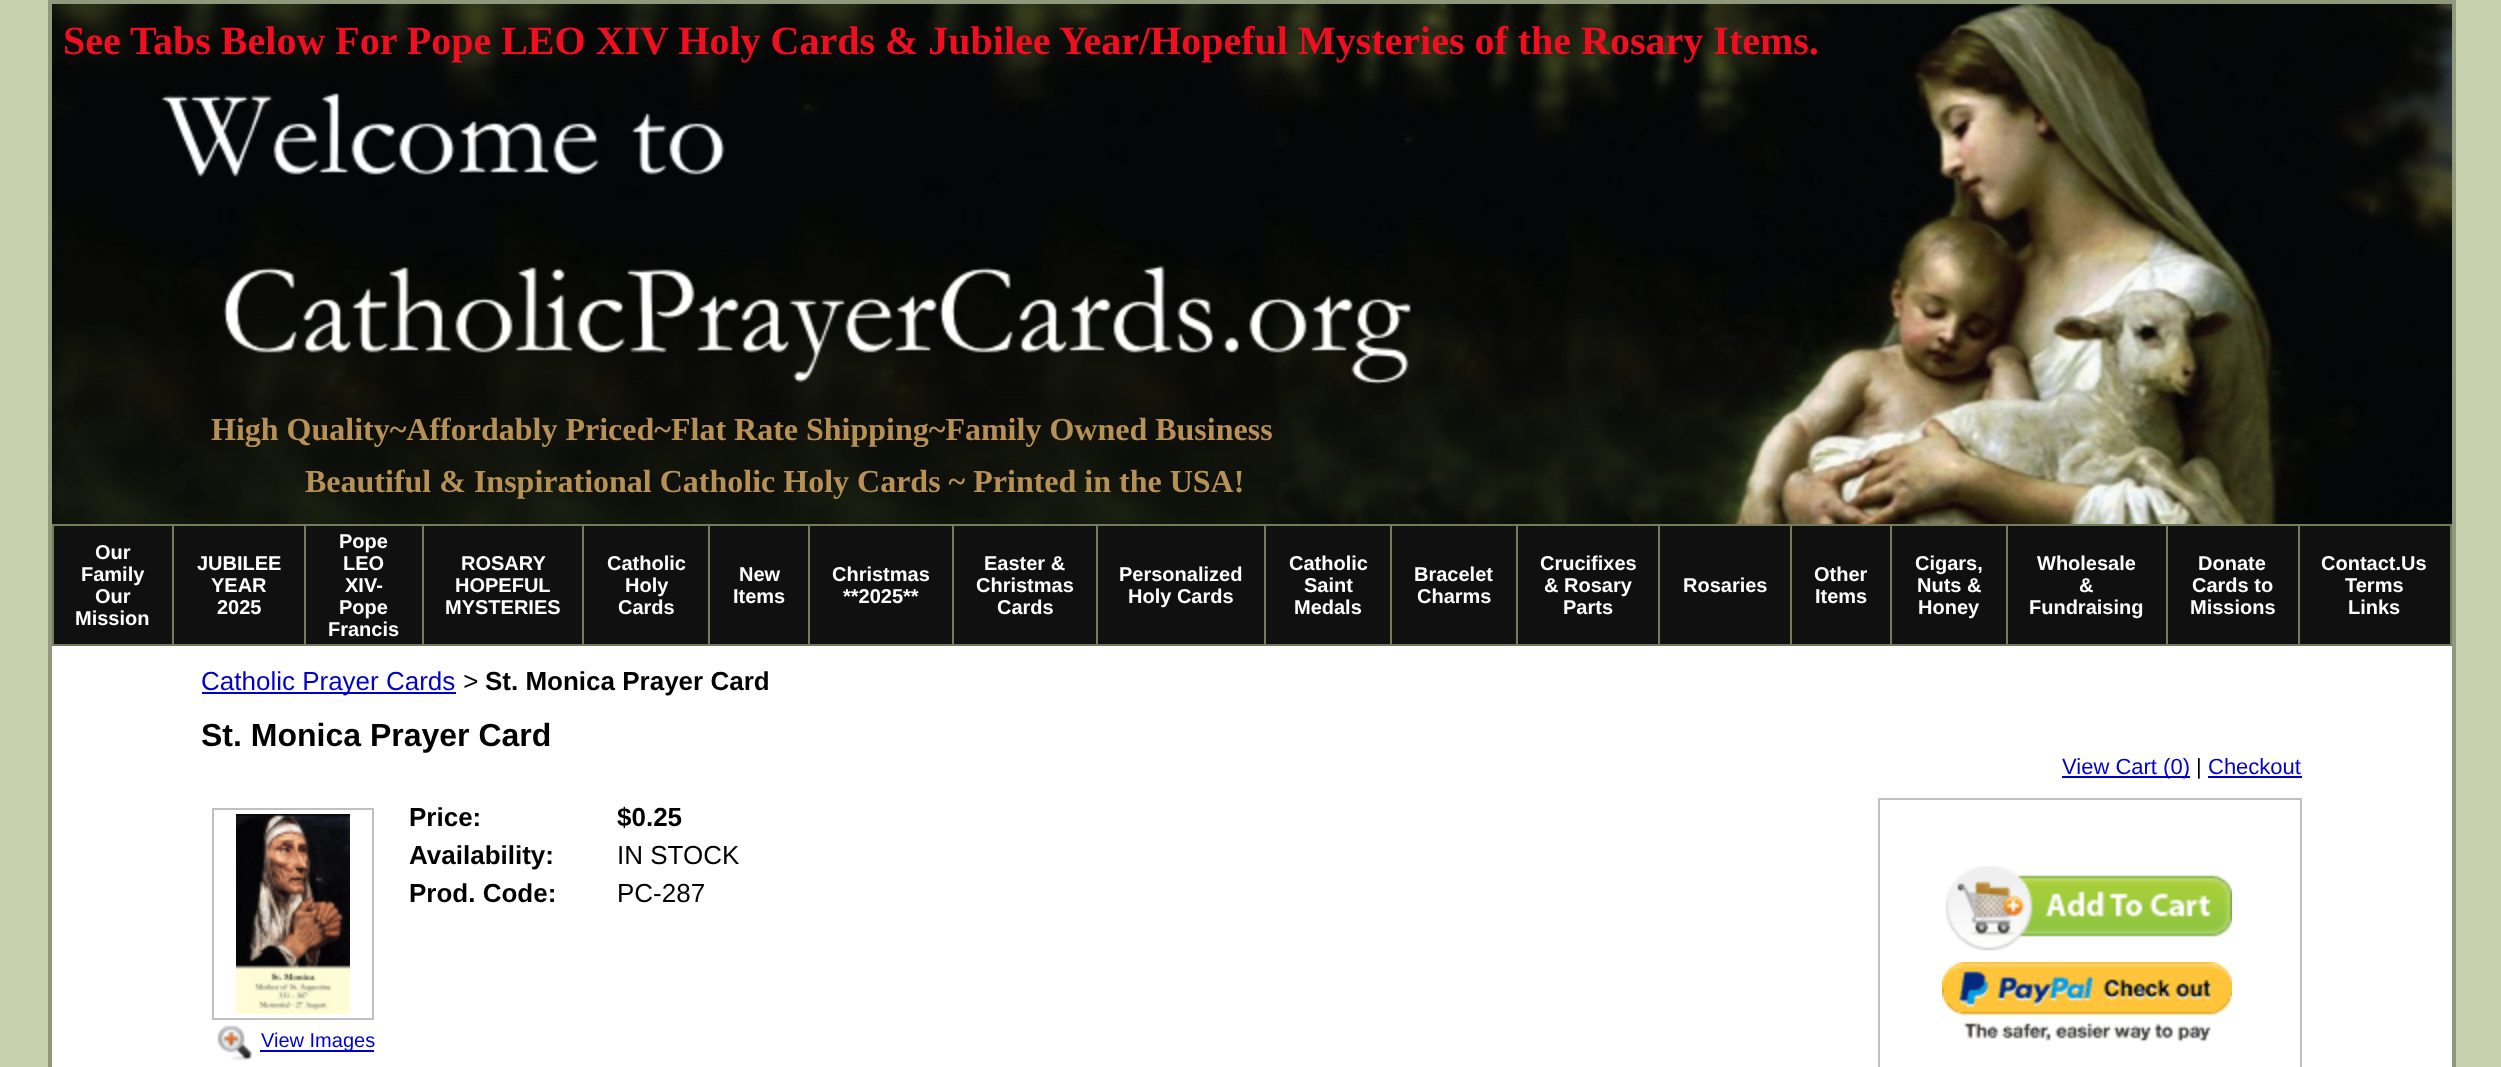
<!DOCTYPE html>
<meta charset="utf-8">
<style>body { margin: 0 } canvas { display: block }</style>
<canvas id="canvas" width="2501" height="1067"></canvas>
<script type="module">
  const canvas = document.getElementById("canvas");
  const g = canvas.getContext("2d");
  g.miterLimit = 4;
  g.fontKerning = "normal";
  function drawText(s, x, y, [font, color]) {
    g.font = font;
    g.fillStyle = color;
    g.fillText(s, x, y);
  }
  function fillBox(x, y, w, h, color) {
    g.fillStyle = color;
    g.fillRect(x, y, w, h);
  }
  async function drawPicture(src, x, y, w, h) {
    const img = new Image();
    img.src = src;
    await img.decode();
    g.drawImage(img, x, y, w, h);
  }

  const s1 = ["bold 40px Liberation Serif", "#F20E21"];
  const s2 = ["bold 32px Liberation Serif", "#B79055"];
  const s3 = ["bold 20px Liberation Sans", "#FFFFFF"];
  const s4 = ["26px Liberation Sans", "#0000CC"];
  const s5 = ["26px Liberation Mono", "#000000"];
  const s6 = ["bold 26px Liberation Sans", "#000000"];
  const s7 = ["bold 32px Liberation Sans", "#000000"];
  const s8 = ["22px Liberation Sans", "#0000CC"];
  const s9 = ["22px Liberation Sans", "#000000"];
  const s10 = ["26px Liberation Sans", "#000000"];
  const s11 = ["20px Liberation Sans", "#0000CC"];

  fillBox(0, 0, 2501, 1067, "#C6D0AD");
  fillBox(48, 0, 2408, 1067, "#90997C");
  await drawPicture("pic1.png", 52, 4, 2400, 520);
  drawText("See Tabs Below For Pope LEO XIV Holy Cards & Jubilee Year/Hopeful Mysteries of the Rosary Items.", 63, 54, s1);
  drawText("High Quality~Affordably Priced~Flat Rate Shipping~Family Owned Business", 211, 440, s2);
  drawText("Beautiful & Inspirational Catholic Holy Cards ~ Printed in the USA!", 305, 492, s2);
  fillBox(52, 524, 2400, 122, "#737D5A");
  fillBox(54, 526, 118, 118, "#101010");
  drawText("Our", 95, 559, s3);
  drawText("Family", 81, 581, s3);
  drawText("Our", 95, 603, s3);
  drawText("Mission", 75, 625, s3);
  fillBox(174, 526, 130, 118, "#101010");
  drawText("JUBILEE", 197, 570, s3);
  drawText("YEAR", 211, 592, s3);
  drawText("2025", 217, 614, s3);
  fillBox(306, 526, 116, 118, "#101010");
  drawText("Pope", 339, 548, s3);
  drawText("LEO", 343, 570, s3);
  drawText("XIV-", 345, 592, s3);
  drawText("Pope", 339, 614, s3);
  drawText("Francis", 328, 636, s3);
  fillBox(424, 526, 158, 118, "#101010");
  drawText("ROSARY", 461, 570, s3);
  drawText("HOPEFUL", 455, 592, s3);
  drawText("MYSTERIES", 445, 614, s3);
  fillBox(584, 526, 124, 118, "#101010");
  drawText("Catholic", 607, 570, s3);
  drawText("Holy", 625, 592, s3);
  drawText("Cards", 618, 614, s3);
  fillBox(710, 526, 98, 118, "#101010");
  drawText("New", 739, 581, s3);
  drawText("Items", 733, 603, s3);
  fillBox(810, 526, 142, 118, "#101010");
  drawText("Christmas", 832, 581, s3);
  drawText("**2025**", 843, 603, s3);
  fillBox(954, 526, 142, 118, "#101010");
  drawText("Easter &", 984, 570, s3);
  drawText("Christmas", 976, 592, s3);
  drawText("Cards", 997, 614, s3);
  fillBox(1098, 526, 166, 118, "#101010");
  drawText("Personalized", 1119, 581, s3);
  drawText("Holy Cards", 1128, 603, s3);
  fillBox(1266, 526, 124, 118, "#101010");
  drawText("Catholic", 1289, 570, s3);
  drawText("Saint", 1304, 592, s3);
  drawText("Medals", 1294, 614, s3);
  fillBox(1392, 526, 124, 118, "#101010");
  drawText("Bracelet", 1414, 581, s3);
  drawText("Charms", 1417, 603, s3);
  fillBox(1518, 526, 140, 118, "#101010");
  drawText("Crucifixes", 1540, 570, s3);
  drawText("& Rosary", 1544, 592, s3);
  drawText("Parts", 1563, 614, s3);
  fillBox(1660, 526, 130, 118, "#101010");
  drawText("Rosaries", 1683, 592, s3);
  fillBox(1792, 526, 98, 118, "#101010");
  drawText("Other", 1814, 581, s3);
  drawText("Items", 1815, 603, s3);
  fillBox(1892, 526, 114, 118, "#101010");
  drawText("Cigars,", 1915, 570, s3);
  drawText("Nuts &", 1917, 592, s3);
  drawText("Honey", 1918, 614, s3);
  fillBox(2008, 526, 158, 118, "#101010");
  drawText("Wholesale", 2037, 570, s3);
  drawText("&", 2079, 592, s3);
  drawText("Fundraising", 2029, 614, s3);
  fillBox(2168, 526, 130, 118, "#101010");
  drawText("Donate", 2198, 570, s3);
  drawText("Cards to", 2192, 592, s3);
  drawText("Missions", 2190, 614, s3);
  fillBox(2300, 526, 150, 118, "#101010");
  drawText("Contact.Us", 2321, 570, s3);
  drawText("Terms", 2345, 592, s3);
  drawText("Links", 2348, 614, s3);
  fillBox(52, 646, 2400, 421, "#FFFFFF");
  fillBox(202, 692, 254, 2, "#0000CC");
  drawText("Catholic Prayer Cards", 201, 690, s4);
  drawText(">", 463, 690, s5);
  drawText("St. Monica Prayer Card", 485, 690, s6);
  drawText("St. Monica Prayer Card", 201, 746, s7);
  fillBox(2062, 776, 128, 2, "#0000CC");
  drawText("View Cart (0)", 2062, 774, s8);
  drawText("|", 2196, 774, s9);
  drawText("Checkout", 2208, 774, s8);
  fillBox(2208, 776, 94, 2, "#0000CC");
  drawText("Price:", 409, 826, s6);
  drawText("$0.25", 617, 826, s6);
  drawText("Availability:", 409, 864, s6);
  drawText("IN STOCK", 617, 864, s10);
  drawText("Prod. Code:", 409, 902, s6);
  drawText("PC-287", 617, 902, s10);
  g.strokeStyle = "#C0C0C0";
  g.lineWidth = 2;
  g.strokeRect(213, 809, 160, 210);
  await drawPicture("pic2.png", 236, 814, 114, 200);
  await drawPicture("pic3.png", 217, 1025, 35, 35);
  fillBox(260, 1050, 114, 2, "#0000CC");
  drawText("View Images", 261, 1047, s11);
  g.strokeRect(1879, 799, 422, 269);
  await drawPicture("pic4.png", 1946, 866, 286, 85);
  await drawPicture("pic5.png", 1942, 962, 290, 81);
</script>
